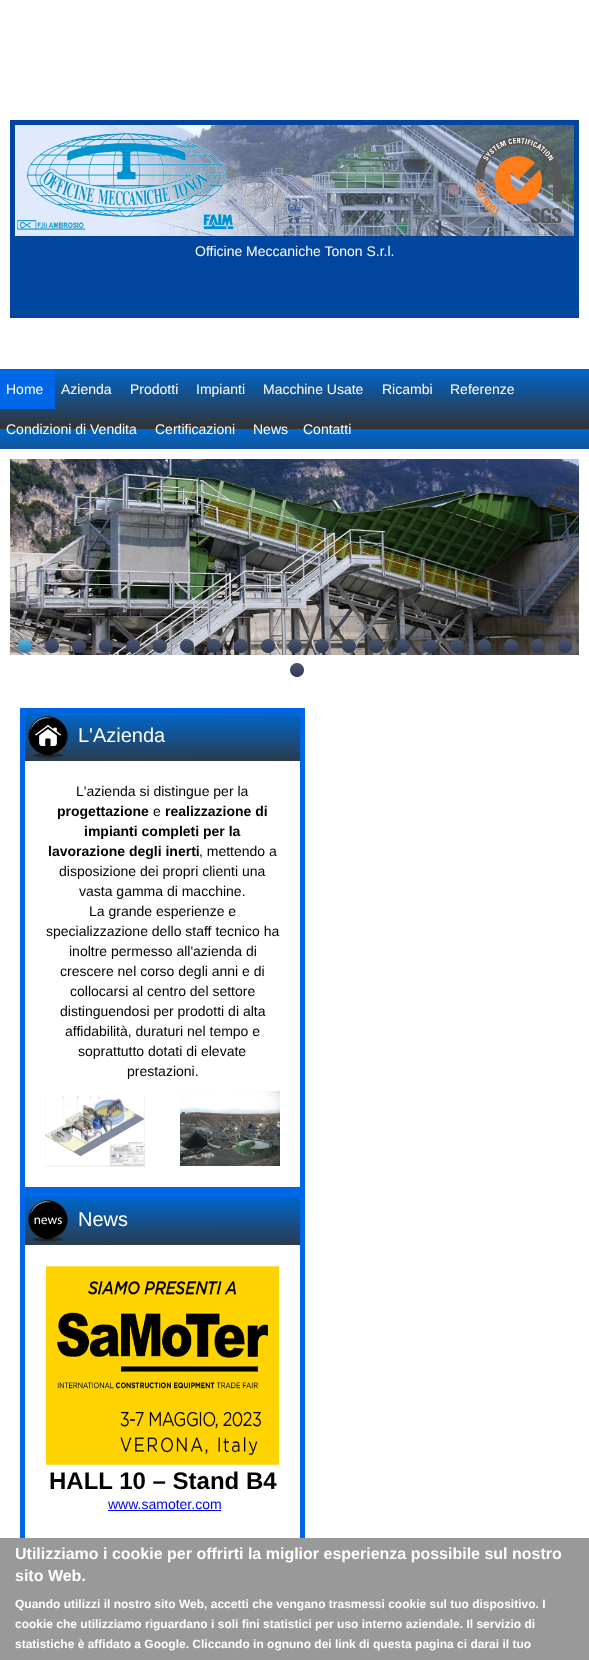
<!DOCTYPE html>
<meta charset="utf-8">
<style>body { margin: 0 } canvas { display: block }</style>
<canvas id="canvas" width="589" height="1660"></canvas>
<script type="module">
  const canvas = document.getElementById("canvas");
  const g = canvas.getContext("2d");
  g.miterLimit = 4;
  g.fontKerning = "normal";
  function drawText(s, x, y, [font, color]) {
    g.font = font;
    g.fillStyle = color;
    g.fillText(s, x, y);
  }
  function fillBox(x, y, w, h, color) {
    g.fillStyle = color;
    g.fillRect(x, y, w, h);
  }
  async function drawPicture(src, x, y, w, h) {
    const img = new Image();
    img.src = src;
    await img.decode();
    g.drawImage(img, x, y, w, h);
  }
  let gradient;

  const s1 = ["14px Liberation Sans", "#FFFFFF"];
  const s2 = ["20px Liberation Sans", "#FFFFFF"];
  const s3 = ["14px Liberation Sans", "#000000"];
  const s4 = ["bold 14px Liberation Sans", "#000000"];
  const s5 = ["bold 24px Liberation Sans", "#000000"];
  const s6 = ["14px Liberation Sans", "#0000FF"];
  const s7 = ["bold 16px Liberation Sans", "#FFFFFF"];
  const s8 = ["bold 12px Liberation Sans", "#FFFFFF"];

  fillBox(0, 0, 589, 1660, "#FFFFFF");
  fillBox(10, 120, 569, 198, "#00459E");
  await drawPicture("pic1.png", 15, 125, 559, 111);
  drawText("Officine Meccaniche Tonon S.r.l.", 195, 256, s1);
  gradient = g.createLinearGradient(295, 369, 295, 489);
  gradient.addColorStop(0, "#0066CC");
  gradient.addColorStop(0.5, "#333333");
  gradient.addColorStop(0.5, "#0066CC");
  gradient.addColorStop(1, "#333333");
  g.fillStyle = gradient;
  g.fillRect(0, 369, 589, 80);
  fillBox(0, 369, 55, 40, "#0066E8");
  drawText("Home", 6, 394, s1);
  drawText("Azienda", 61, 394, s1);
  drawText("Prodotti", 130, 394, s1);
  drawText("Impianti", 196, 394, s1);
  drawText("Macchine Usate", 263, 394, s1);
  drawText("Ricambi", 382, 394, s1);
  drawText("Referenze", 450, 394, s1);
  drawText("Condizioni di Vendita", 6, 434, s1);
  drawText("Certificazioni", 155, 434, s1);
  drawText("News", 253, 434, s1);
  drawText("Contatti", 303, 434, s1);
  await drawPicture("pic2.png", 10, 459, 569, 196);
  await drawPicture("pic3.png", 18, 639, 14, 14);
  await drawPicture("pic4.png", 45, 639, 14, 14);
  await drawPicture("pic5.png", 72, 639, 14, 14);
  await drawPicture("pic6.png", 99, 639, 14, 14);
  await drawPicture("pic7.png", 126, 639, 14, 14);
  await drawPicture("pic8.png", 153, 639, 14, 14);
  await drawPicture("pic9.png", 180, 639, 14, 14);
  await drawPicture("pic10.png", 207, 639, 14, 14);
  await drawPicture("pic11.png", 234, 639, 14, 14);
  await drawPicture("pic12.png", 261, 639, 14, 14);
  await drawPicture("pic13.png", 288, 639, 14, 14);
  await drawPicture("pic14.png", 315, 639, 14, 14);
  await drawPicture("pic15.png", 342, 639, 14, 14);
  await drawPicture("pic16.png", 369, 639, 14, 14);
  await drawPicture("pic17.png", 396, 639, 14, 14);
  await drawPicture("pic18.png", 423, 639, 14, 14);
  await drawPicture("pic19.png", 450, 639, 14, 14);
  await drawPicture("pic20.png", 477, 639, 14, 14);
  await drawPicture("pic21.png", 504, 639, 14, 14);
  await drawPicture("pic22.png", 531, 639, 14, 14);
  await drawPicture("pic23.png", 558, 639, 14, 14);
  await drawPicture("pic24.png", 290, 663, 14, 14);
  fillBox(20, 708, 285, 830, "#0066E8");
  gradient = g.createLinearGradient(162, 713, 163, 1193);
  gradient.addColorStop(0, "#0066CC");
  gradient.addColorStop(0.12, "#333333");
  gradient.addColorStop(0.12, "#0066CC");
  gradient.addColorStop(0.25, "#333333");
  gradient.addColorStop(0.25, "#0066CC");
  gradient.addColorStop(0.38, "#333333");
  gradient.addColorStop(0.38, "#0066CC");
  gradient.addColorStop(0.5, "#333333");
  gradient.addColorStop(0.5, "#0066CC");
  gradient.addColorStop(0.62, "#333333");
  gradient.addColorStop(0.62, "#0066CC");
  gradient.addColorStop(0.75, "#333333");
  gradient.addColorStop(0.75, "#0066CC");
  gradient.addColorStop(0.88, "#333333");
  gradient.addColorStop(0.88, "#0066CC");
  gradient.addColorStop(1, "#333333");
  g.fillStyle = gradient;
  g.fillRect(25, 713, 275, 48);
  await drawPicture("pic25.png", 28, 716, 40, 43);
  drawText("L'Azienda", 78, 742, s2);
  fillBox(25, 761, 275, 426, "#FFFFFF");
  drawText("L'azienda si distingue per la", 76, 796, s3);
  drawText("progettazione", 57, 816, s4);
  drawText("e", 153, 816, s3);
  drawText("realizzazione di", 165, 816, s4);
  drawText("impianti completi per la", 84, 836, s4);
  drawText("lavorazione degli inerti", 48, 856, s4);
  drawText(", mettendo a", 199, 856, s3);
  drawText("disposizione dei propri clienti una", 59, 876, s3);
  drawText("vasta gamma di macchine.", 79, 896, s3);
  drawText("La grande esperienze e", 89, 916, s3);
  drawText("specializzazione dello staff tecnico ha", 46, 936, s3);
  drawText("inoltre permesso all'azienda di", 69, 956, s3);
  drawText("crescere nel corso degli anni e di", 60, 976, s3);
  drawText("collocarsi al centro del settore", 70, 996, s3);
  drawText("distinguendosi per prodotti di alta", 60, 1016, s3);
  drawText("affidabilità, duraturi nel tempo e", 65, 1036, s3);
  drawText("soprattutto dotati di elevate", 78, 1056, s3);
  drawText("prestazioni.", 127, 1076, s3);
  await drawPicture("pic26.png", 45, 1096, 100, 71);
  await drawPicture("pic27.png", 180, 1091, 100, 75);
  gradient = g.createLinearGradient(162, 1197, 163, 1617);
  gradient.addColorStop(0, "#0066CC");
  gradient.addColorStop(0.14, "#333333");
  gradient.addColorStop(0.14, "#0066CC");
  gradient.addColorStop(0.29, "#333333");
  gradient.addColorStop(0.29, "#0066CC");
  gradient.addColorStop(0.43, "#333333");
  gradient.addColorStop(0.43, "#0066CC");
  gradient.addColorStop(0.57, "#333333");
  gradient.addColorStop(0.57, "#0066CC");
  gradient.addColorStop(0.71, "#333333");
  gradient.addColorStop(0.71, "#0066CC");
  gradient.addColorStop(0.86, "#333333");
  gradient.addColorStop(0.86, "#0066CC");
  gradient.addColorStop(1, "#333333");
  g.fillStyle = gradient;
  g.fillRect(25, 1197, 275, 48);
  await drawPicture("pic28.png", 28, 1200, 40, 43);
  drawText("News", 78, 1226, s2);
  fillBox(25, 1245, 275, 293, "#FFFFFF");
  await drawPicture("pic29.png", 46, 1266, 233, 199);
  drawText("HALL 10 – Stand B4", 49, 1489, s5);
  drawText("www.samoter.com", 108, 1509, s6);
  fillBox(108, 1510, 113, 1, "#0000FF");
  fillBox(0, 1538, 589, 122, "#999999");
  drawText("Utilizziamo i cookie per offrirti la miglior esperienza possibile sul nostro", 15, 1559, s7);
  drawText("sito Web.", 15, 1581, s7);
  drawText("Quando utilizzi il nostro sito Web, accetti che vengano trasmessi cookie sul tuo dispositivo. I", 15, 1608, s8);
  drawText("cookie che utilizziamo riguardano i soli fini statistici per uso interno aziendale. Il servizio di", 15, 1628, s8);
  drawText("statistiche è affidato a Google. Cliccando in ognuno dei link di questa pagina ci darai il tuo", 15, 1648, s8);
</script>
